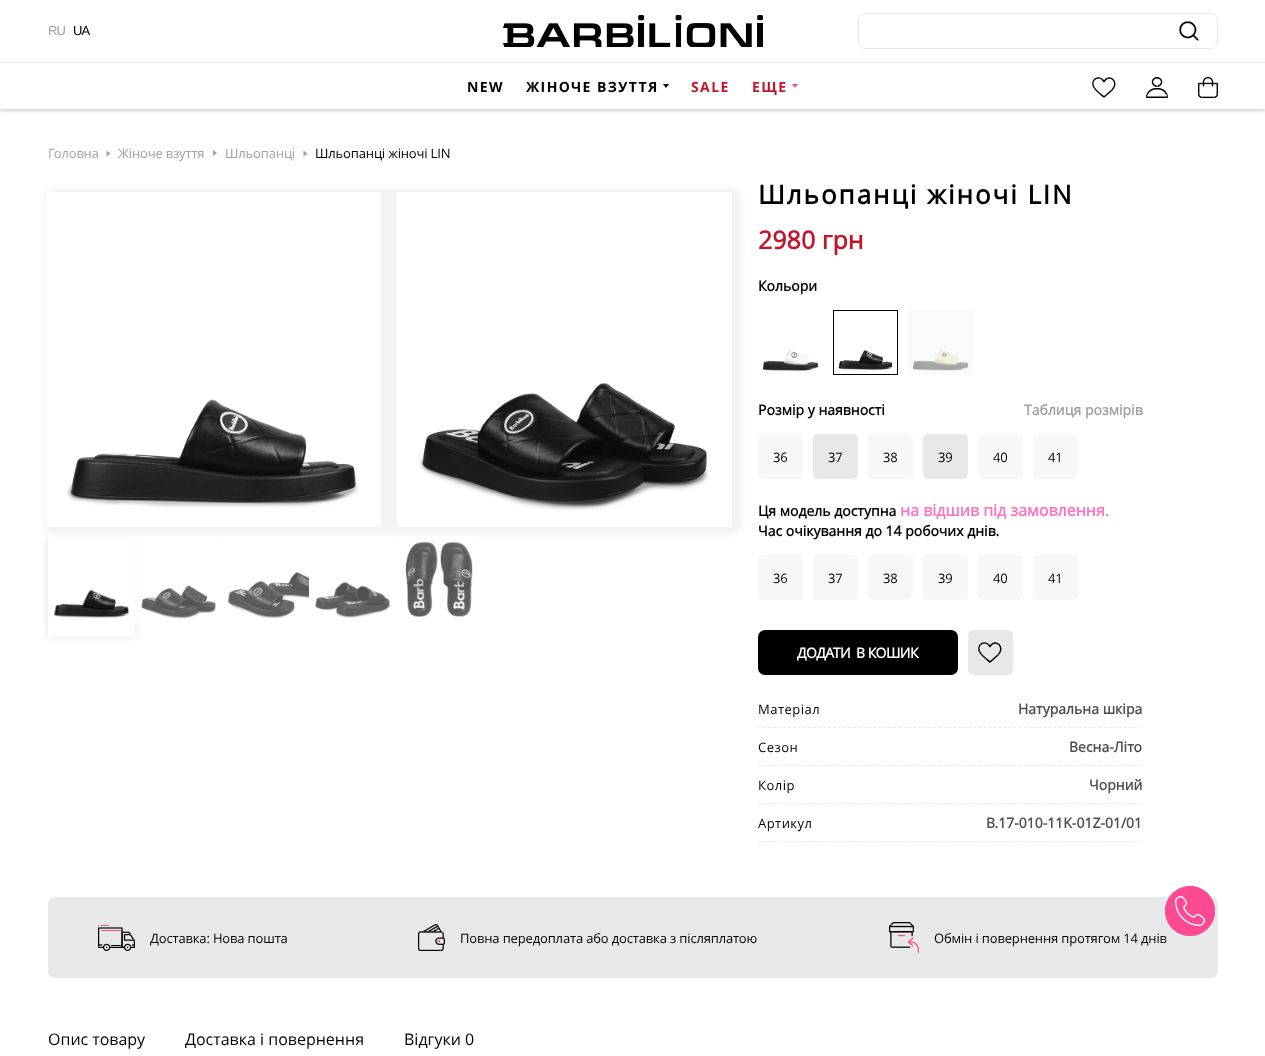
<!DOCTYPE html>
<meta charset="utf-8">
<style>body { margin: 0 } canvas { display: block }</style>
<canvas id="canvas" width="1265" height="1056"></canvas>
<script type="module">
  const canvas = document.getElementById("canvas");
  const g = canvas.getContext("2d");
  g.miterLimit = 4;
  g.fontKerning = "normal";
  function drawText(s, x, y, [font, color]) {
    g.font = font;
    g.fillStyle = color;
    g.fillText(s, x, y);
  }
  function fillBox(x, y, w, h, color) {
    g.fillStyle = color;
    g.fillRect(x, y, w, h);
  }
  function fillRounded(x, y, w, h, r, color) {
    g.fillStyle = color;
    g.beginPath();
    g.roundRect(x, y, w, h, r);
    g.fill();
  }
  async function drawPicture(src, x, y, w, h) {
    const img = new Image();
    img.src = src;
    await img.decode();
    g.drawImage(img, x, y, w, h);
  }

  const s1 = ["13px Liberation Sans", "#A1A1A1"];
  const s2 = ["13px Liberation Sans", "#000000"];
  const s3 = ["bold 14px 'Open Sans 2'", "#000000"];
  const s4 = ["bold 14px 'Open Sans 2'", "#C41429"];
  const s5 = ["13px Open Sans", "#A1A1A1"];
  const s6 = ["13px Open Sans", "#000000"];
  const s7 = ["bold 26px Open Sans", "#000000"];
  const s8 = ["bold 25px Open Sans", "#C41429"];
  const s9 = ["bold 14px Open Sans", "#000000"];
  const s10 = ["bold 14px Open Sans", "#A1A1A1"];
  const s11 = ["bold 16px Open Sans", "#FF72C2"];
  const s12 = ["bold 14px Open Sans", "#FFFFFF"];
  const s13 = ["bold 14px Open Sans", "#4F4F4F"];
  const s14 = ["16px Open Sans", "#000000"];

  fillBox(0, 0, 1265, 1056, "#FFFFFF");
  fillBox(908, 310, 65, 65, "#FAFAFA");
  g.save();
  g.beginPath();
  g.rect(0, 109, 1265, 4);
  g.clip();
  g.fillStyle = "rgba(0, 0, 0, 0.25)";
  g.filter = "blur(2.5px)";
  g.beginPath();
  g.rect(0, 1, 1265, 109);
  g.fill();
  g.filter = "none";
  g.restore();
  fillBox(0, 62, 1265, 1, "#E6E8E9");
  g.letterSpacing = "-1px";
  drawText("RU", 48, 35, s1);
  drawText("UA", 73, 35, s2);
  await drawPicture("pic1.png", 503, 15, 260, 32);
  g.beginPath();
  g.roundRect(858.5, 13.5, 359, 35, 6.5);
  g.strokeStyle = "#E6E8E9";
  g.stroke();
  g.fillStyle = "#FFFFFF";
  g.beginPath();
  g.roundRect(859, 14, 303, 34, [7, 0, 0, 7]);
  g.fill();
  g.beginPath();
  g.roundRect(1162, 14, 55, 34, [0, 7, 7, 0]);
  g.fill();
  await drawPicture("pic2.png", 1179, 21, 20, 20);
  g.letterSpacing = "1.4px";
  drawText("NEW", 467, 92, s3);
  drawText("ЖІНОЧЕ ВЗУТТЯ", 526, 92, s3);
  g.beginPath();
  g.moveTo(666, 88);
  g.lineTo(663, 84);
  g.lineTo(669, 84);
  g.closePath();
  g.fill();
  drawText("SALE", 691, 92, s4);
  drawText("ЕЩЕ", 752, 92, s4);
  g.fillStyle = "#FE4993";
  g.beginPath();
  g.moveTo(795, 88);
  g.lineTo(792, 84);
  g.lineTo(798, 84);
  g.closePath();
  g.fill();
  g.beginPath();
  g.moveTo(1112, 90);
  g.lineTo(1104, 97);
  g.bezierCurveTo(1101, 94.5, 1096, 91, 1094, 87.5);
  g.bezierCurveTo(1089.5, 79.5, 1099.5, 74, 1104, 81.5);
  g.bezierCurveTo(1109, 73, 1120, 82, 1112, 90);
  g.closePath();
  g.strokeStyle = "#000000";
  g.lineWidth = 1.5;
  g.lineCap = "square";
  g.lineJoin = "round";
  g.stroke();
  await drawPicture("pic3.png", 1146, 77, 22, 21);
  await drawPicture("pic4.png", 1198, 77, 20, 21);
  g.letterSpacing = "-0.15px";
  drawText("Головна", 48, 158, s5);
  g.beginPath();
  g.moveTo(110.5, 153.5);
  g.lineTo(106.5, 156.5);
  g.lineTo(106.5, 150.5);
  g.closePath();
  g.fill();
  drawText("Жіноче взуття", 118, 158, s5);
  g.beginPath();
  g.moveTo(217, 153);
  g.lineTo(213, 150);
  g.lineTo(213, 156);
  g.closePath();
  g.fill();
  drawText("Шльопанці", 225, 158, s5);
  g.beginPath();
  g.moveTo(307.5, 153.5);
  g.lineTo(303.5, 156.5);
  g.lineTo(303.5, 150.5);
  g.closePath();
  g.fill();
  drawText("Шльопанці жіночі LIN", 315, 158, s6);
  g.fillStyle = "rgba(0, 0, 0, 0.1)";
  g.filter = "blur(5px)";
  g.beginPath();
  g.rect(48, 192, 690, 339);
  g.fill();
  g.filter = "none";
  fillBox(48, 192, 690, 339, "#F3F3F3");
  fillBox(46, 192, 335, 335, "#FFFFFF");
  await drawPicture("pic5.png", 66, 399, 293, 109);
  fillBox(397, 192, 335, 335, "#FFFFFF");
  await drawPicture("pic6.png", 419, 382, 290, 129);
  g.save();
  g.beginPath();
  g.rect(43, 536, 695, 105);
  g.clip();
  g.beginPath();
  g.moveTo(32, 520);
  g.lineTo(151, 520);
  g.lineTo(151, 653);
  g.lineTo(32, 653);
  g.closePath();
  g.moveTo(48, 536);
  g.lineTo(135, 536);
  g.lineTo(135, 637);
  g.lineTo(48, 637);
  g.closePath();
  g.clip("evenodd");
  g.fillStyle = "rgba(0, 0, 0, 0.1)";
  g.filter = "blur(5px)";
  g.beginPath();
  g.rect(48, 536, 87, 101);
  g.fill();
  g.filter = "none";
  g.restore();
  await drawPicture("pic7.png", 53, 589, 77, 29);
  await drawPicture("pic8.png", 135, 536, 81, 87);
  await drawPicture("pic9.png", 222, 536, 87, 87);
  await drawPicture("pic10.png", 309, 536, 83, 87);
  await drawPicture("pic11.png", 396, 536, 77, 87);
  g.letterSpacing = "1.95px";
  drawText("Шльопанці жіночі LIN", 758, 204, s7);
  g.letterSpacing = "0px";
  drawText("2980 грн", 758, 249, s8);
  drawText("Кольори", 758, 291, s9);
  await drawPicture("pic12.png", 762, 349, 57, 23);
  await drawPicture("pic13.png", 838, 350, 55, 21);
  g.lineWidth = 1;
  g.lineJoin = "miter";
  g.strokeRect(833.5, 310.5, 64, 64);
  await drawPicture("pic14.png", 912, 348, 57, 23);
  drawText("Розмір у наявності", 758, 415, s9);
  drawText("Таблиця розмірів", 1024, 415, s10);
  fillRounded(758, 434, 45, 45, 5, "#F7F7F7");
  g.letterSpacing = "-0.15px";
  drawText("36", 773, 462, s6);
  fillRounded(813, 434, 45, 45, 5, "#E6E8E9");
  drawText("37", 828, 462, s6);
  fillRounded(868, 434, 45, 45, 5, "#F7F7F7");
  drawText("38", 883, 462, s6);
  fillRounded(923, 434, 45, 45, 5, "#E6E8E9");
  drawText("39", 938, 462, s6);
  fillRounded(978, 434, 45, 45, 5, "#F7F7F7");
  drawText("40", 993, 462, s6);
  fillRounded(1033, 434, 45, 45, 5, "#F7F7F7");
  drawText("41", 1048, 462, s6);
  g.letterSpacing = "0px";
  drawText("Ця модель доступна", 758, 516, s9);
  drawText("на відшив під замовлення.", 900, 516, s11);
  drawText("Час очікування до 14 робочих днів.", 758, 536, s9);
  fillRounded(758, 555, 45, 45, 5, "#F7F7F7");
  g.letterSpacing = "-0.15px";
  drawText("36", 773, 583, s6);
  fillRounded(813, 555, 45, 45, 5, "#F7F7F7");
  drawText("37", 828, 583, s6);
  fillRounded(868, 555, 45, 45, 5, "#F7F7F7");
  drawText("38", 883, 583, s6);
  fillRounded(923, 555, 45, 45, 5, "#F7F7F7");
  drawText("39", 938, 583, s6);
  fillRounded(978, 555, 45, 45, 5, "#F7F7F7");
  drawText("40", 993, 583, s6);
  fillRounded(1033, 555, 45, 45, 5, "#F7F7F7");
  drawText("41", 1048, 583, s6);
  fillRounded(758, 630, 200, 45, 7, "#000000");
  g.letterSpacing = "-0.5px";
  drawText("ДОДАТИ", 797, 658, s12);
  drawText("В КОШИК", 856, 658, s12);
  fillRounded(968, 630, 45, 45, 5, "#E6E8E9");
  g.beginPath();
  g.moveTo(998, 655);
  g.lineTo(990, 662);
  g.bezierCurveTo(987, 659.5, 982, 656, 980, 652.5);
  g.bezierCurveTo(975.5, 644.5, 985.5, 639, 990, 646.5);
  g.bezierCurveTo(995, 638, 1006, 647, 998, 655);
  g.closePath();
  g.lineWidth = 1.5;
  g.lineJoin = "round";
  g.stroke();
  g.beginPath();
  g.moveTo(758, 727.5);
  g.lineTo(1142, 727.5);
  g.strokeStyle = "#E6E8E9";
  g.lineWidth = 1;
  g.lineCap = "butt";
  g.lineJoin = "miter";
  g.setLineDash([3, 2.01]);
  g.stroke();
  g.letterSpacing = "0.5px";
  drawText("Матеріал", 758, 714, s6);
  g.letterSpacing = "0px";
  drawText("Натуральна шкіра", 1018, 714, s13);
  g.beginPath();
  g.moveTo(758, 765.5);
  g.lineTo(1142, 765.5);
  g.stroke();
  g.letterSpacing = "0.5px";
  drawText("Сезон", 758, 752, s6);
  g.letterSpacing = "0px";
  drawText("Весна-Літо", 1069, 752, s13);
  g.beginPath();
  g.moveTo(758, 803.5);
  g.lineTo(1142, 803.5);
  g.stroke();
  g.letterSpacing = "0.5px";
  drawText("Колір", 758, 790, s6);
  g.letterSpacing = "0px";
  drawText("Чорний", 1089, 790, s13);
  g.beginPath();
  g.moveTo(758, 841.5);
  g.lineTo(1142, 841.5);
  g.stroke();
  g.letterSpacing = "0.5px";
  drawText("Артикул", 758, 828, s6);
  g.letterSpacing = "0px";
  drawText("B.17-010-11K-01Z-01/01", 986, 828, s13);
  fillRounded(48, 897, 1170, 81, 7, "#E6E8E9");
  await drawPicture("pic15.png", 98, 925, 37, 26);
  g.letterSpacing = "-0.15px";
  drawText("Доставка: Нова пошта", 150, 943, s6);
  await drawPicture("pic16.png", 418, 924, 27, 27);
  drawText("Повна передоплата або доставка з післяплатою", 460, 943, s6);
  await drawPicture("pic17.png", 889, 922, 30, 31);
  drawText("Обмін і повернення протягом 14 днів", 934, 943, s6);
  g.letterSpacing = "0px";
  drawText("Опис товару", 48, 1045, s14);
  drawText("Доставка і повернення", 185, 1045, s14);
  drawText("Відгуки", 404, 1045, s14);
  drawText("0", 465, 1045, s14);
  g.fillStyle = "#FE4993";
  g.beginPath();
  g.arc(1190, 911, 25, 0, Math.PI * 2);
  g.fill();
  await drawPicture("pic18.png", 1175, 896, 30, 30);
  g.beginPath();
  g.arc(1190, 911, 24.5, 0, Math.PI * 2);
  g.strokeStyle = "#FE4993";
  g.setLineDash([]);
  g.stroke();
</script>
